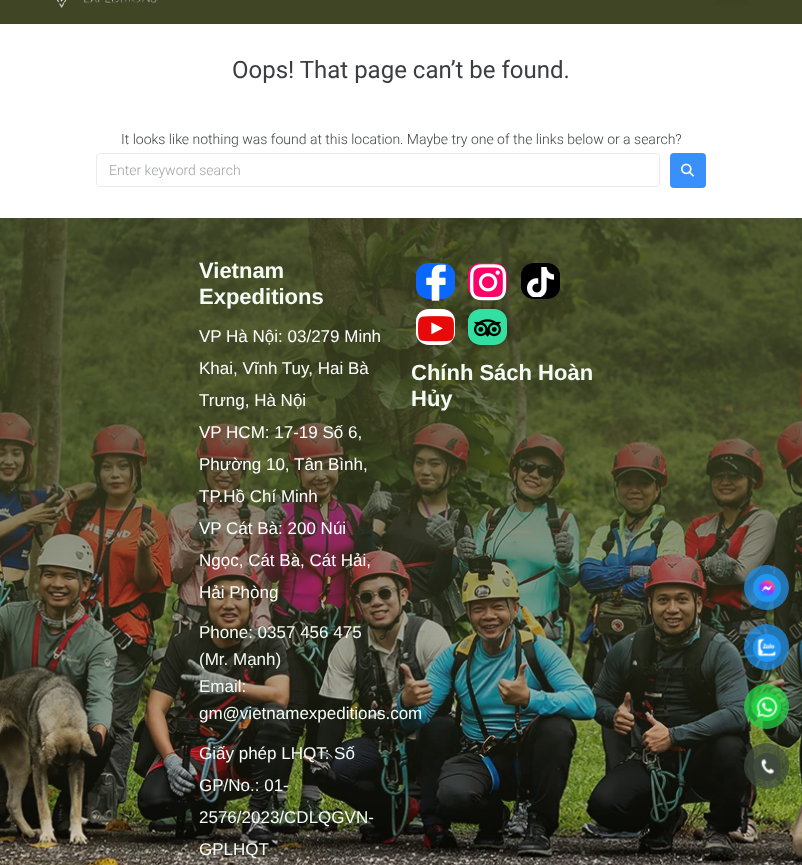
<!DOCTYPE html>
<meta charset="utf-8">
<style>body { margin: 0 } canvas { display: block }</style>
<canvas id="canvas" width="802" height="865"></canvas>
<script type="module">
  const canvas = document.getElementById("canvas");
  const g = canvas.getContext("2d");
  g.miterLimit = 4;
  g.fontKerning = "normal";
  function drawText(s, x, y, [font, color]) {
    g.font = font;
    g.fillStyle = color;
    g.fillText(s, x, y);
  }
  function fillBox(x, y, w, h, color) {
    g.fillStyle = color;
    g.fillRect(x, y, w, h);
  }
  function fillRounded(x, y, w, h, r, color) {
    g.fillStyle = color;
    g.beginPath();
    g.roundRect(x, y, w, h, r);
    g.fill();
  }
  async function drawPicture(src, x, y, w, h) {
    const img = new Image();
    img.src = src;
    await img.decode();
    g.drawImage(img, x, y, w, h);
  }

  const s1 = ["24px Roboto", "#3B3D42"];
  const s2 = ["300 14px Roboto", "#3B3D42"];
  const s3 = ["300 14px Roboto", "#A1A2A4"];
  const s4 = ["bold 22px Liberation Sans", "#F3FDF6"];
  const s5 = ["17px Liberation Sans", "#FFFFFF"];
  const s6 = ["17px Liberation Sans", "#F3FDF6"];

  fillBox(0, 0, 802, 865, "#FFFFFF");
  fillBox(0, 0, 802, 24, "#404625");
  await drawPicture("pic1.png", 57, 0, 100, 8);
  fillRounded(715, -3, 33, 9, 3, "#3D4323");
  drawText("Oops! That page can’t be found.", 232, 78, s1);
  drawText("It looks like nothing was found at this location. Maybe try one of the links below or a search?", 121, 144, s2);
  g.beginPath();
  g.roundRect(96.5, 153.5, 563, 33, 3.5);
  g.strokeStyle = "#EBECED";
  g.stroke();
  drawText("Enter keyword search", 109, 175, s3);
  fillRounded(670, 153, 36, 35, 4, "#398FFC");
  await drawPicture("pic2.png", 681, 163, 13, 14);
  await drawPicture("pic3.png", 0, 218, 802, 647);
  drawText("Vietnam", 199, 278, s4);
  drawText("Expeditions", 199, 304, s4);
  drawText("VP Hà Nội: 03/279 Minh", 199, 342, s5);
  drawText("Khai, Vĩnh Tuy, Hai Bà", 199, 374, s5);
  drawText("Trưng, Hà Nội", 199, 406, s5);
  drawText("VP HCM: 17-19 Số 6,", 199, 438, s5);
  drawText("Phường 10, Tân Bình,", 199, 470, s5);
  drawText("TP.Hồ Chí Minh", 199, 502, s5);
  drawText("VP Cát Bà: 200 Núi", 199, 534, s5);
  drawText("Ngọc, Cát Bà, Cát Hải,", 199, 566, s5);
  drawText("Hải Phòng", 199, 598, s5);
  drawText("Phone: 0357 456 475", 199, 638, s6);
  drawText("(Mr. Mạnh)", 199, 665, s6);
  drawText("Email:", 199, 692, s6);
  drawText("gm@vietnamexpeditions.com", 199, 719, s6);
  drawText("Giấy phép LHQT: Số", 199, 759, s6);
  drawText("GP/No.: 01-", 199, 791, s6);
  drawText("2576/2023/CDLQGVN-", 199, 823, s6);
  drawText("GPLHQT", 199, 855, s6);
  g.fillStyle = "#0C67FE";
  g.beginPath();
  g.moveTo(429, 263);
  g.lineTo(442, 263);
  g.bezierCurveTo(449, 263, 455, 268.5, 455, 275);
  g.lineTo(455, 287);
  g.bezierCurveTo(455, 293.5, 449, 299, 442, 299);
  g.lineTo(429, 299);
  g.bezierCurveTo(422, 299, 416, 293.5, 416, 287);
  g.lineTo(416, 275);
  g.bezierCurveTo(416, 268.5, 422, 263, 429, 263);
  g.closePath();
  g.fill();
  await drawPicture("pic4.png", 426, 264, 20, 37);
  g.fillStyle = "#FA0267";
  g.beginPath();
  g.moveTo(481, 263);
  g.lineTo(494, 263);
  g.bezierCurveTo(501, 263, 507, 268.5, 507, 275);
  g.lineTo(507, 287);
  g.bezierCurveTo(507, 293.5, 501, 299, 494, 299);
  g.lineTo(481, 299);
  g.bezierCurveTo(474, 299, 468, 293.5, 468, 287);
  g.lineTo(468, 275);
  g.bezierCurveTo(468, 268.5, 474, 263, 481, 263);
  g.closePath();
  g.fill();
  await drawPicture("pic5.png", 470, 264, 37, 37);
  g.fillStyle = "#000000";
  g.beginPath();
  g.moveTo(534, 263);
  g.lineTo(547, 263);
  g.bezierCurveTo(554, 263, 560, 268.5, 560, 275);
  g.lineTo(560, 287);
  g.bezierCurveTo(560, 293.5, 554, 299, 547, 299);
  g.lineTo(534, 299);
  g.bezierCurveTo(527, 299, 521, 293.5, 521, 287);
  g.lineTo(521, 275);
  g.bezierCurveTo(521, 268.5, 527, 263, 534, 263);
  g.closePath();
  g.fill();
  await drawPicture("pic6.png", 527, 267, 27, 30);
  g.fillStyle = "#FFFFFF";
  g.beginPath();
  g.moveTo(429, 309);
  g.lineTo(442, 309);
  g.bezierCurveTo(449, 309, 455, 314.5, 455, 321);
  g.lineTo(455, 333);
  g.bezierCurveTo(455, 339.5, 449, 345, 442, 345);
  g.lineTo(429, 345);
  g.bezierCurveTo(422, 345, 416, 339.5, 416, 333);
  g.lineTo(416, 321);
  g.bezierCurveTo(416, 314.5, 422, 309, 429, 309);
  g.closePath();
  g.fill();
  await drawPicture("pic7.png", 418, 316, 36, 26);
  g.fillStyle = "rgba(0, 0, 0, 0.5)";
  g.filter = "blur(5px)";
  g.beginPath();
  g.roundRect(468, 309, 39, 36, 12);
  g.fill();
  g.filter = "none";
  g.fillStyle = "#34E0A1";
  g.beginPath();
  g.moveTo(481, 309);
  g.lineTo(494, 309);
  g.bezierCurveTo(501, 309, 507, 314.5, 507, 321);
  g.lineTo(507, 333);
  g.bezierCurveTo(507, 339.5, 501, 345, 494, 345);
  g.lineTo(481, 345);
  g.bezierCurveTo(474, 345, 468, 339.5, 468, 333);
  g.lineTo(468, 321);
  g.bezierCurveTo(468, 314.5, 474, 309, 481, 309);
  g.closePath();
  g.fill();
  await drawPicture("pic8.png", 474, 319, 27, 18);
  drawText("Chính Sách Hoàn", 411, 380, s4);
  drawText("Hủy", 411, 406, s4);
  g.fillStyle = "rgba(33, 150, 243, 0.7)";
  g.beginPath();
  g.arc(766.5, 587.5, 22.5, 0, Math.PI * 2);
  g.fill();
  g.fillStyle = "#2196F3";
  g.beginPath();
  g.arc(767, 588, 14, 0, Math.PI * 2);
  g.fill();
  await drawPicture("pic9.png", 758, 579, 18, 18);
  fillRounded(744, 624, 45, 46, 22.5, "rgba(33, 150, 243, 0.7)");
  g.fillStyle = "#2196F3";
  g.beginPath();
  g.arc(767, 648, 14, 0, Math.PI * 2);
  g.fill();
  await drawPicture("pic10.png", 757, 638, 20, 19);
  g.fillStyle = "rgba(35, 217, 72, 0.7)";
  g.beginPath();
  g.arc(766.5, 706.5, 22.5, 0, Math.PI * 2);
  g.fill();
  g.fillStyle = "#1CD741";
  g.beginPath();
  g.arc(767, 707, 14, 0, Math.PI * 2);
  g.fill();
  await drawPicture("pic11.png", 753, 693, 28, 28);
  fillRounded(744, 743, 45, 46, 22.5, "rgba(63, 74, 60, 0.7)");
  g.fillStyle = "#3F4A3C";
  g.beginPath();
  g.arc(767, 767, 14, 0, Math.PI * 2);
  g.fill();
  await drawPicture("pic12.png", 760, 758, 15, 17);
</script>
